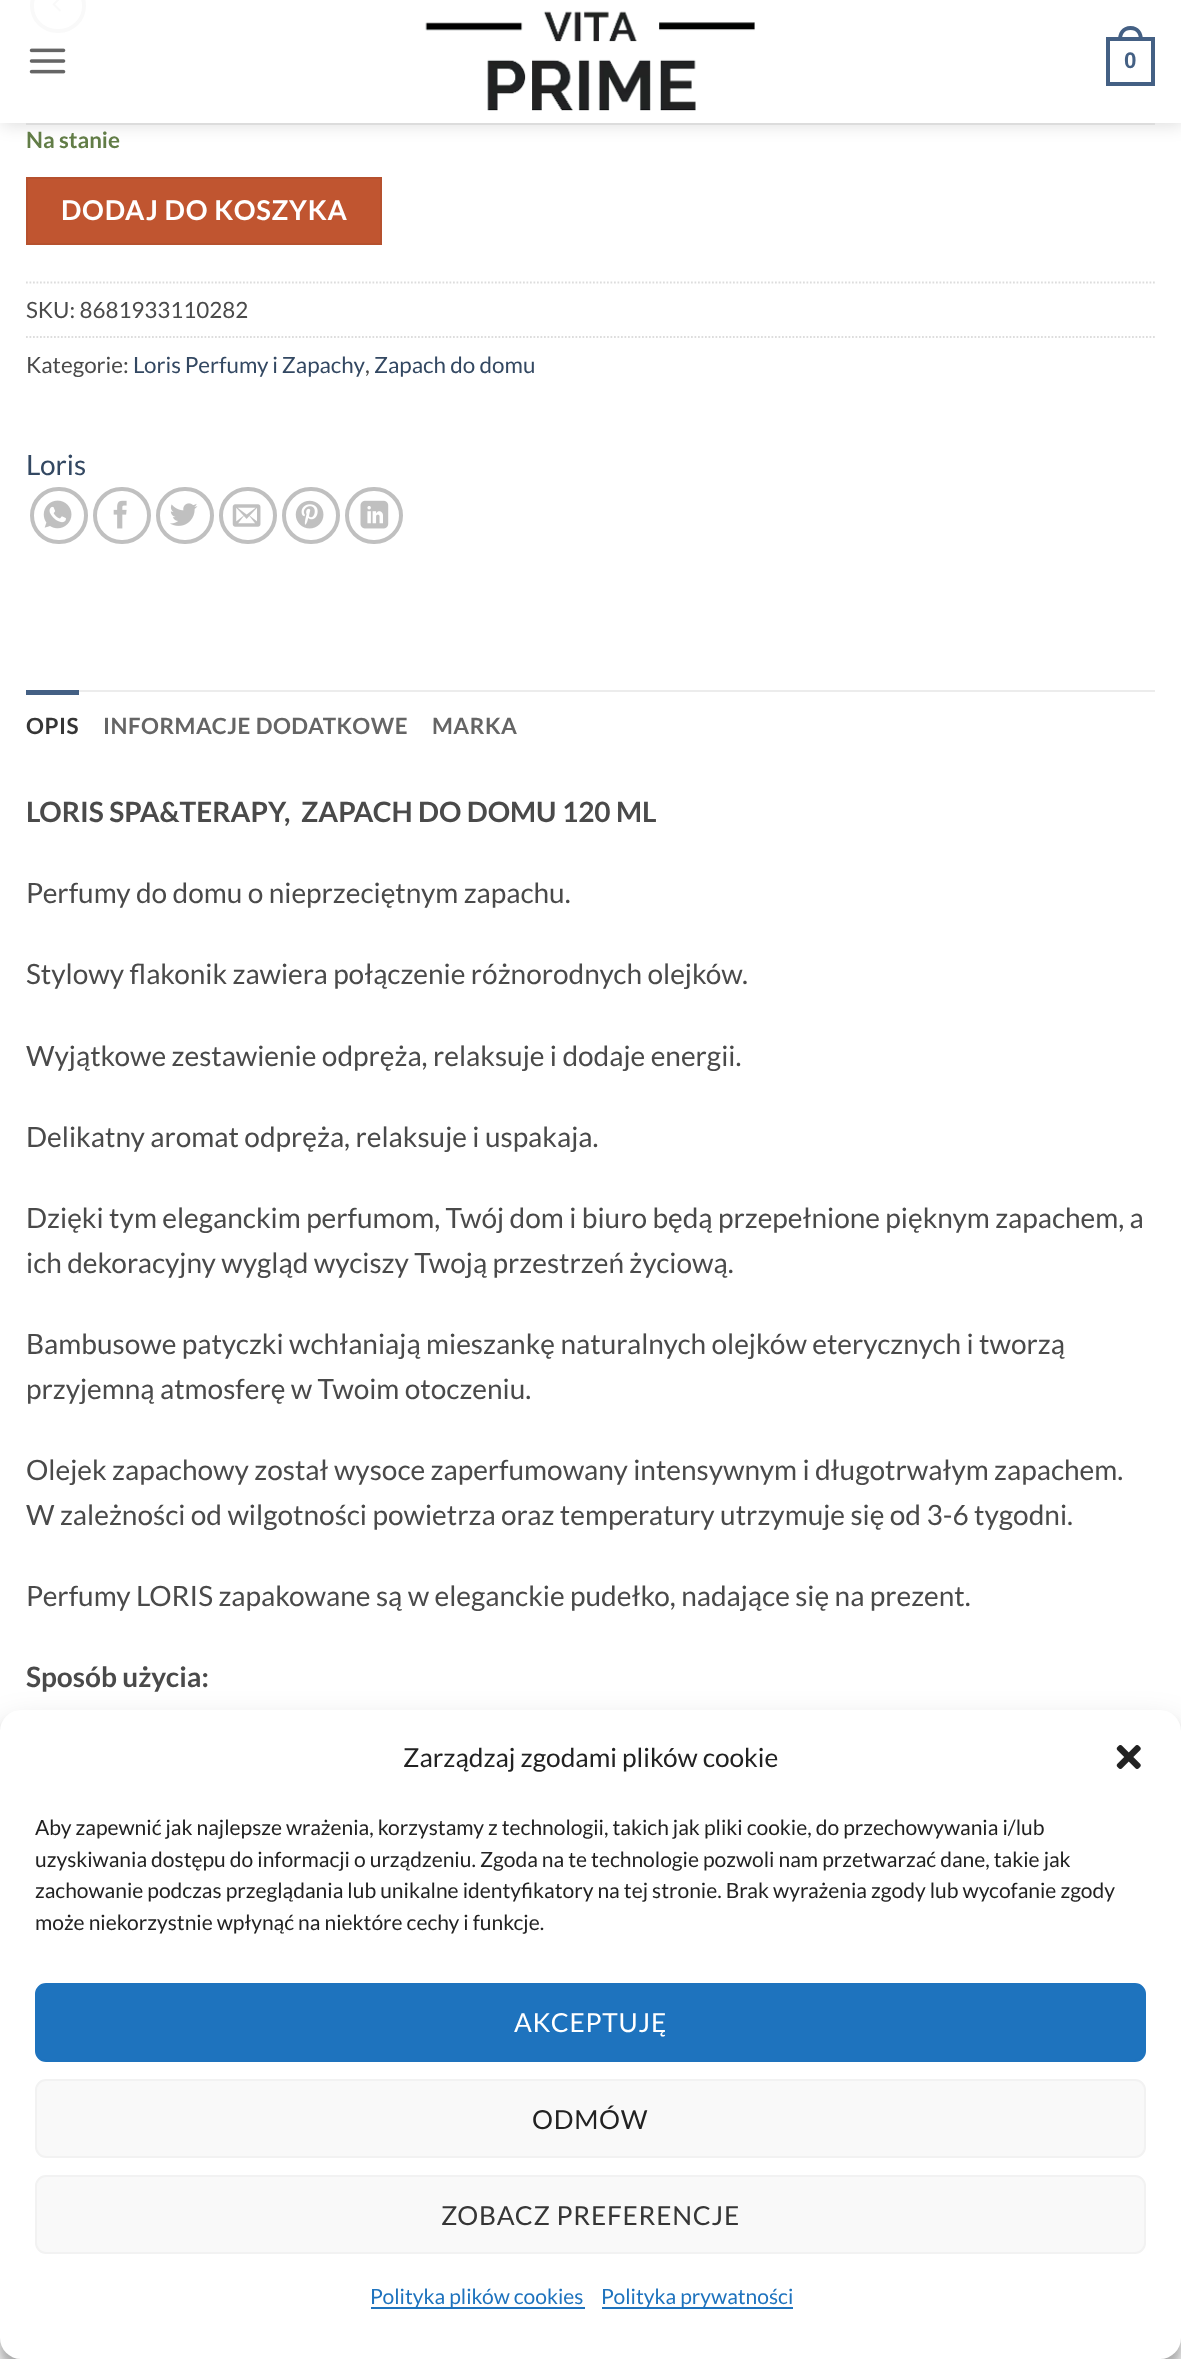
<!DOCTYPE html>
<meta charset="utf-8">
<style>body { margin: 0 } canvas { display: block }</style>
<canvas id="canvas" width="1181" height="2359"></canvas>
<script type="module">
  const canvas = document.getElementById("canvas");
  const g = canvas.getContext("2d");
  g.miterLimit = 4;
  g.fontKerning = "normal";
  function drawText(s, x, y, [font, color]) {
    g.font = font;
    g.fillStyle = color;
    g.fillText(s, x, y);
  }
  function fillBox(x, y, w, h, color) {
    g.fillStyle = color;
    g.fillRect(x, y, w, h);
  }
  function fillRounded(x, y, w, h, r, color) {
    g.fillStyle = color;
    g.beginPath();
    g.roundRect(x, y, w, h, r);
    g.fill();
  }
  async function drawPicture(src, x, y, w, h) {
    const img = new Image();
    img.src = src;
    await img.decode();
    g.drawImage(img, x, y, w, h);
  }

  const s1 = ["bold 22.4px Liberation Sans", "#446084"];
  const s2 = ["bold 22.4px Lato", "#627D47"];
  const s3 = ["bold 27.25px Lato", "#FFFFFF"];
  const s4 = ["22.4px Lato", "#4A4A4A"];
  const s5 = ["22.4px Lato", "#334862"];
  const s6 = ["28px Lato", "#334862"];
  const s7 = ["bold 22.4px Lato", "#363636"];
  const s8 = ["bold 22.4px Lato", "#656565"];
  const s9 = ["bold 28px Lato", "#4A4A4A"];
  const s10 = ["28px Lato", "#4A4A4A"];
  const s11 = ["26.25px Lato", "#222222"];
  const s12 = ["21px Lato", "#222222"];
  const s13 = ["26.25px Lato", "#FFFFFF"];
  const s14 = ["26.25px Lato", "#363636"];
  const s15 = ["21px Lato", "#1E73BE"];

  fillBox(0, 0, 1181, 2359, "#FFFFFF");
  g.beginPath();
  g.roundRect(32, -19, 52, 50, 25);
  g.strokeStyle = "#C0C0C0";
  g.lineWidth = 4;
  g.stroke();
  await drawPicture("pic3.png", 52, 0, 9, 12);
  g.save();
  g.beginPath();
  g.moveTo(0, 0);
  g.lineTo(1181, 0);
  g.lineTo(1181, 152);
  g.lineTo(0, 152);
  g.closePath();
  g.moveTo(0, 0);
  g.lineTo(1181, 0);
  g.lineTo(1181, 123);
  g.lineTo(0, 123);
  g.closePath();
  g.clip("evenodd");
  g.fillStyle = "rgba(0, 0, 0, 0.15)";
  g.filter = "blur(9px)";
  g.beginPath();
  g.rect(2, 2, 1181, 122);
  g.fill();
  g.filter = "none";
  g.restore();
  fillBox(0, 0, 1181, 123, "rgba(255, 255, 255, 0.9)");
  await drawPicture("pic1.png", 29, 48, 37, 26);
  await drawPicture("pic2.png", 425, 11, 330, 100);
  g.strokeStyle = "#446084";
  g.strokeRect(1108, 39, 45, 45);
  g.fillStyle = "#446084";
  g.beginPath();
  g.moveTo(1130.5, 26);
  g.bezierCurveTo(1139, 26, 1143, 32.5, 1143, 40);
  g.lineTo(1118, 40);
  g.bezierCurveTo(1118, 32.5, 1122, 26, 1130.5, 26);
  g.closePath();
  g.moveTo(1130.5, 30);
  g.bezierCurveTo(1137, 30, 1139, 34.5, 1139, 40);
  g.lineTo(1122, 40);
  g.bezierCurveTo(1122, 34.5, 1124, 30, 1130.5, 30);
  g.closePath();
  g.fill("evenodd");
  drawText("0", 1124, 68, s1);
  fillBox(26, 123, 1129, 2, "#DCDCDC");
  drawText("Na stanie", 26, 148, s2);
  g.fillStyle = "#C05530";
  g.beginPath();
  g.rect(27, 178, 354, 66);
  g.fill();
  g.strokeStyle = "#B6512E";
  g.lineWidth = 2;
  g.stroke();
  g.letterSpacing = "0.75px";
  drawText("DODAJ DO KOSZYKA", 61, 220, s3);
  g.beginPath();
  g.moveTo(26, 282.5);
  g.lineTo(1155, 282.5);
  g.strokeStyle = "#DDDDDD";
  g.lineWidth = 1.8;
  g.setLineDash([1.75, 1.75]);
  g.stroke();
  g.letterSpacing = "0px";
  drawText("SKU: 8681933110282", 26, 318, s4);
  g.beginPath();
  g.moveTo(26, 337);
  g.lineTo(1155, 337);
  g.stroke();
  drawText("Kategorie:", 26, 373, s4);
  g.wordSpacing = "-0.5px";
  drawText("Loris Perfumy i Zapachy", 133, 373, s5);
  g.wordSpacing = "0px";
  drawText(",", 365, 373, s4);
  drawText("Zapach do domu", 374, 373, s5);
  drawText("Loris", 26, 475, s6);
  g.beginPath();
  g.roundRect(32, 489, 54, 53, 26.5);
  g.strokeStyle = "#C0C0C0";
  g.lineWidth = 4;
  g.setLineDash([]);
  g.stroke();
  await drawPicture("pic4.png", 43, 500, 29, 29);
  g.beginPath();
  g.roundRect(95, 489, 54, 53, 26.5);
  g.stroke();
  await drawPicture("pic5.png", 113, 500, 14, 29);
  g.beginPath();
  g.roundRect(158, 489, 54, 53, 26.5);
  g.stroke();
  await drawPicture("pic6.png", 170, 503, 28, 23);
  g.beginPath();
  g.roundRect(221, 489, 54, 53, 26.5);
  g.stroke();
  await drawPicture("pic7.png", 232, 504, 29, 23);
  g.beginPath();
  g.roundRect(284, 489, 54, 53, 26.5);
  g.stroke();
  await drawPicture("pic8.png", 295, 500, 29, 29);
  g.beginPath();
  g.roundRect(347, 489, 54, 53, 26.5);
  g.stroke();
  await drawPicture("pic9.png", 360, 500, 29, 29);
  fillBox(79, 690, 1076, 2, "#ECECEC");
  fillBox(26, 690, 53, 5, "#446084");
  g.letterSpacing = "0.5px";
  drawText("OPIS", 26, 734, s7);
  drawText("INFORMACJE DODATKOWE", 103, 734, s8);
  drawText("MARKA", 432, 734, s8);
  g.letterSpacing = "0px";
  drawText("LORIS SPA&TERAPY,  ZAPACH DO DOMU 120 ML", 26, 822, s9);
  drawText("Perfumy do domu o nieprzeciętnym zapachu.", 26, 903, s10);
  drawText("Stylowy flakonik zawiera połączenie różnorodnych olejków.", 26, 984, s10);
  drawText("Wyjątkowe zestawienie odpręża, relaksuje i dodaje energii.", 26, 1066, s10);
  drawText("Delikatny aromat odpręża, relaksuje i uspakaja.", 26, 1147, s10);
  drawText("Dzięki tym eleganckim perfumom, Twój dom i biuro będą przepełnione pięknym zapachem, a", 26, 1228, s10);
  drawText("ich dekoracyjny wygląd wyciszy Twoją przestrzeń życiową.", 26, 1273, s10);
  drawText("Bambusowe patyczki wchłaniają mieszankę naturalnych olejków eterycznych i tworzą", 26, 1354, s10);
  drawText("przyjemną atmosferę w Twoim otoczeniu.", 26, 1399, s10);
  drawText("Olejek zapachowy został wysoce zaperfumowany intensywnym i długotrwałym zapachem.", 26, 1480, s10);
  drawText("W zależności od wilgotności powietrza oraz temperatury utrzymuje się od 3-6 tygodni.", 26, 1525, s10);
  drawText("Perfumy LORIS zapakowane są w eleganckie pudełko, nadające się na prezent.", 26, 1606, s10);
  drawText("Sposób użycia:", 26, 1687, s9);
  g.fillStyle = "rgba(0, 0, 0, 0.23)";
  g.filter = "blur(5px)";
  g.beginPath();
  g.roundRect(0, 1720, 1181, 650, 21);
  g.fill();
  g.filter = "none";
  g.fillStyle = "rgba(0, 0, 0, 0.19)";
  g.filter = "blur(17.5px)";
  g.beginPath();
  g.roundRect(0, 1727, 1181, 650, 21);
  g.fill();
  g.filter = "none";
  fillRounded(0, 1710, 1181, 649, 21, "#FFFFFF");
  drawText("Zarządzaj zgodami plików cookie", 403, 1767, s11);
  await drawPicture("pic10.png", 1116, 1745, 25, 24);
  drawText("Aby zapewnić jak najlepsze wrażenia, korzystamy z technologii, takich jak pliki cookie, do przechowywania i/lub", 35, 1835, s12);
  drawText("uzyskiwania dostępu do informacji o urządzeniu. Zgoda na te technologie pozwoli nam przetwarzać dane, takie jak", 35, 1867, s12);
  drawText("zachowanie podczas przeglądania lub unikalne identyfikatory na tej stronie. Brak wyrażenia zgody lub wycofanie zgody", 35, 1898, s12);
  drawText("może niekorzystnie wpłynąć na niektóre cechy i funkcje.", 35, 1930, s12);
  g.fillStyle = "#1E73BE";
  g.beginPath();
  g.roundRect(36, 1984, 1109, 77, 10);
  g.fill();
  g.strokeStyle = "#1E73BE";
  g.lineWidth = 2;
  g.stroke();
  g.letterSpacing = "0.75px";
  drawText("AKCEPTUJĘ", 514, 2032, s13);
  g.fillStyle = "#F9F9F9";
  g.beginPath();
  g.roundRect(36, 2080, 1109, 77, 10);
  g.fill();
  g.strokeStyle = "#F2F2F2";
  g.stroke();
  drawText("ODMÓW", 532, 2129, s11);
  g.fillStyle = "#F9F9F9";
  g.beginPath();
  g.roundRect(36, 2176, 1109, 77, 10);
  g.fill();
  g.stroke();
  drawText("ZOBACZ PREFERENCJE", 441, 2225, s14);
  fillBox(371, 2307, 214, 2, "#1E73BE");
  g.letterSpacing = "0px";
  drawText("Polityka plików cookies", 370, 2304, s15);
  fillBox(602, 2307, 191, 2, "#1E73BE");
  drawText("Polityka prywatności", 601, 2304, s15);
</script>
